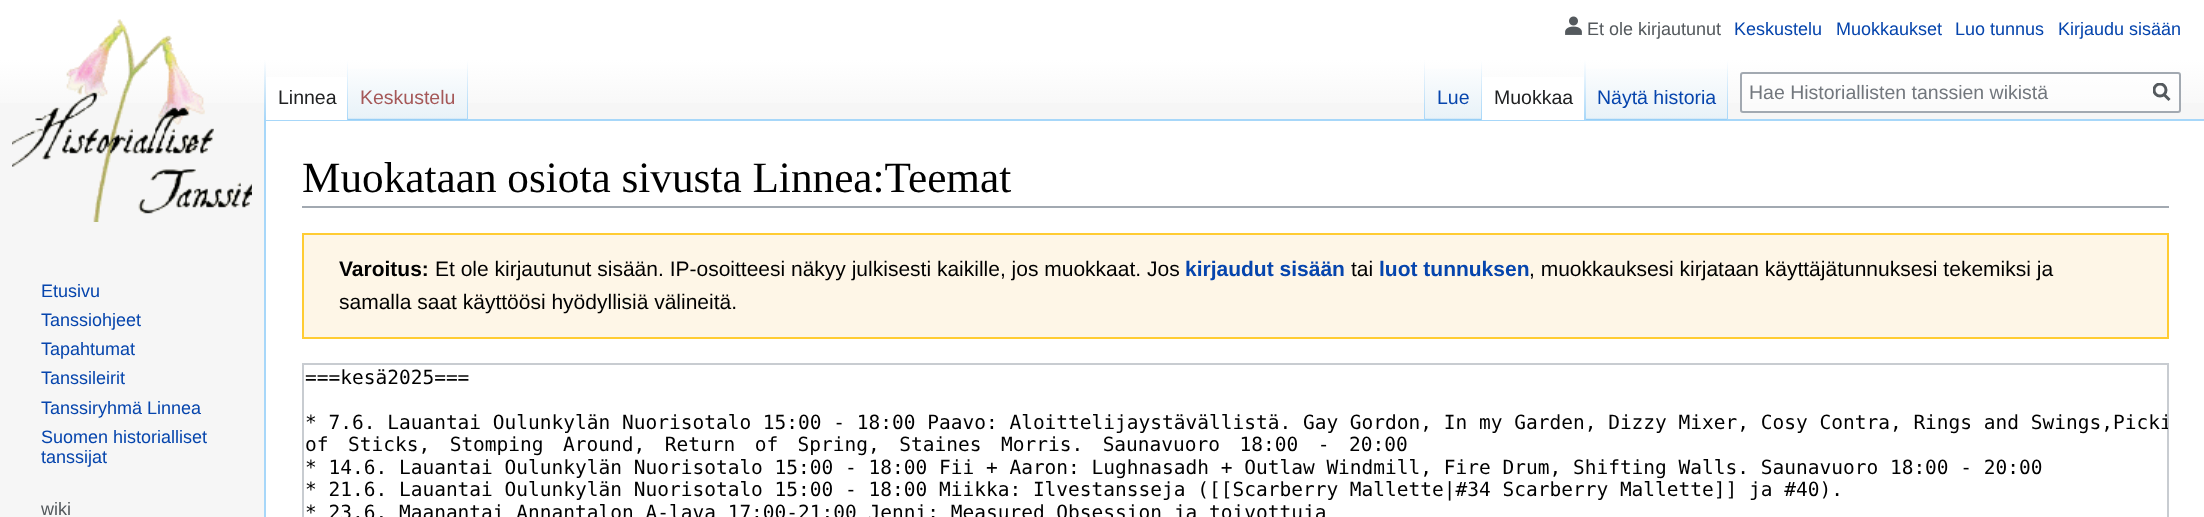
<!DOCTYPE html>
<meta charset="utf-8">
<style>body { margin: 0 } canvas { display: block }</style>
<canvas id="canvas" width="2204" height="517"></canvas>
<script type="module">
  const canvas = document.getElementById("canvas");
  const g = canvas.getContext("2d");
  g.miterLimit = 4;
  g.fontKerning = "normal";
  function drawText(s, x, y, [font, color]) {
    g.font = font;
    g.fillStyle = color;
    g.fillText(s, x, y);
  }
  function fillBox(x, y, w, h, color) {
    g.fillStyle = color;
    g.fillRect(x, y, w, h);
  }
  async function drawPicture(src, x, y, w, h) {
    const img = new Image();
    img.src = src;
    await img.decode();
    g.drawImage(img, x, y, w, h);
  }
  let gradient;

  const s1 = ["18px Liberation Sans", "#54595D"];
  const s2 = ["18px Liberation Sans", "#0645AD"];
  const s3 = ["19.5px Liberation Sans", "#202122"];
  const s4 = ["19.5px Liberation Sans", "#A55858"];
  const s5 = ["19.5px Liberation Sans", "#0645AD"];
  const s6 = ["19.5px Liberation Sans", "#72777D"];
  const s7 = ["43.25px Liberation Serif", "#000000"];
  const s8 = ["bold 21px Liberation Sans", "#000000"];
  const s9 = ["21px Liberation Sans", "#000000"];
  const s10 = ["bold 21px Liberation Sans", "#0645AD"];
  const s11 = ["19.5px DejaVu Sans Mono", "#000000"];

  fillBox(0, 0, 2204, 517, "#F6F6F6");
  gradient = g.createLinearGradient(1103, 0, 1103, 120);
  gradient.addColorStop(0.5, "#FFFFFF");
  gradient.addColorStop(1, "#F6F6F6");
  g.fillStyle = gradient;
  g.fillRect(0, 0, 2204, 103);
  await drawPicture("pic1.png", 1565, 16, 17, 19);
  drawText("Et ole kirjautunut", 1587, 35, s1);
  drawText("Keskustelu", 1734, 35, s2);
  drawText("Muokkaukset", 1836, 35, s2);
  drawText("Luo tunnus", 1955, 35, s2);
  drawText("Kirjaudu sisään", 2058, 35, s2);
  fillBox(264, 119, 1940, 2, "#A7D7F9");
  fillBox(264, 119, 2, 398, "#A7D7F9");
  gradient = g.createLinearGradient(265, 60, 265, 120);
  gradient.addColorStop(0, "rgba(167, 215, 249, 0)");
  gradient.addColorStop(1, "#A7D7F9");
  g.fillStyle = gradient;
  g.fillRect(264, 60, 2, 60);
  fillBox(266, 77, 81, 43, "#FFFFFF");
  gradient = g.createLinearGradient(347, 60, 347, 120);
  gradient.addColorStop(0, "#FFFFFF");
  gradient.addColorStop(1, "#A7D7F9");
  g.fillStyle = gradient;
  g.fillRect(347, 60, 1, 60);
  drawText("Linnea", 278, 104, s3);
  gradient = g.createLinearGradient(408, 120, 408, 60);
  gradient.addColorStop(0, "#77C1F6");
  gradient.addColorStop(0.03, "#E8F2F8");
  gradient.addColorStop(1, "#FFFFFF");
  g.fillStyle = gradient;
  g.fillRect(348, 69, 120, 51);
  gradient = g.createLinearGradient(467, 60, 467, 120);
  gradient.addColorStop(0, "rgba(167, 215, 249, 0)");
  gradient.addColorStop(1, "#A7D7F9");
  g.fillStyle = gradient;
  g.fillRect(467, 60, 1, 60);
  drawText("Keskustelu", 360, 104, s4);
  gradient = g.createLinearGradient(1424, 60, 1424, 120);
  gradient.addColorStop(0, "rgba(167, 215, 249, 0)");
  gradient.addColorStop(1, "#A7D7F9");
  g.fillStyle = gradient;
  g.fillRect(1424, 60, 1, 60);
  gradient = g.createLinearGradient(1454, 120, 1454, 60);
  gradient.addColorStop(0, "#77C1F6");
  gradient.addColorStop(0.03, "#E8F2F8");
  gradient.addColorStop(1, "#FFFFFF");
  g.fillStyle = gradient;
  g.fillRect(1425, 69, 57, 51);
  gradient = g.createLinearGradient(1481, 60, 1481, 120);
  gradient.addColorStop(0, "rgba(167, 215, 249, 0)");
  gradient.addColorStop(1, "#A7D7F9");
  g.fillStyle = gradient;
  g.fillRect(1481, 60, 1, 60);
  drawText("Lue", 1437, 104, s5);
  fillBox(1482, 77, 102, 43, "#FFFFFF");
  gradient = g.createLinearGradient(1585, 60, 1585, 120);
  gradient.addColorStop(0, "#FFFFFF");
  gradient.addColorStop(1, "#A7D7F9");
  g.fillStyle = gradient;
  g.fillRect(1584, 60, 2, 60);
  drawText("Muokkaa", 1494, 104, s3);
  gradient = g.createLinearGradient(1657, 120, 1657, 60);
  gradient.addColorStop(0, "#77C1F6");
  gradient.addColorStop(0.03, "#E8F2F8");
  gradient.addColorStop(1, "#FFFFFF");
  g.fillStyle = gradient;
  g.fillRect(1586, 69, 142, 51);
  gradient = g.createLinearGradient(1727, 60, 1727, 120);
  gradient.addColorStop(0, "rgba(167, 215, 249, 0)");
  gradient.addColorStop(1, "#A7D7F9");
  g.fillStyle = gradient;
  g.fillRect(1727, 60, 1, 60);
  drawText("Näytä historia", 1597, 104, s5);
  g.fillStyle = "rgba(255, 255, 255, 0.5)";
  g.beginPath();
  g.roundRect(1741, 73, 439, 39, 2);
  g.fill();
  g.strokeStyle = "#A2A9B1";
  g.lineWidth = 2;
  g.stroke();
  drawText("Hae Historiallisten tanssien wikistä", 1749, 99, s6);
  g.beginPath();
  g.moveTo(2169.5, 100);
  g.lineTo(2163.5, 94);
  g.strokeStyle = "#54595D";
  g.lineWidth = 3;
  g.stroke();
  g.save();
  g.beginPath();
  g.rect(2153, 83, 18, 19);
  g.clip();
  g.beginPath();
  g.arc(2160, 90, 6, 0, Math.PI * 2);
  g.stroke();
  g.restore();
  await drawPicture("pic2.png", 12, 19, 240, 203);
  drawText("Etusivu", 41, 297, s2);
  drawText("Tanssiohjeet", 41, 326, s2);
  drawText("Tapahtumat", 41, 355, s2);
  drawText("Tanssileirit", 41, 384, s2);
  drawText("Tanssiryhmä Linnea", 41, 414, s2);
  drawText("Suomen historialliset", 41, 443, s2);
  drawText("tanssijat", 41, 463, s2);
  drawText("wiki", 41, 515, s1);
  fillBox(266, 121, 1938, 396, "#FFFFFF");
  fillBox(302, 206, 1867, 2, "#A2A9B1");
  drawText("Muokataan osiota sivusta Linnea:Teemat", 302, 192, s7);
  g.fillStyle = "#FEF6E7";
  g.beginPath();
  g.rect(303, 234, 1865, 104);
  g.fill();
  g.strokeStyle = "#FFCC33";
  g.lineWidth = 2;
  g.stroke();
  drawText("Varoitus:", 339, 276, s8);
  drawText("Et ole kirjautunut sisään. IP-osoitteesi näkyy julkisesti kaikille, jos muokkaat. Jos", 435, 276, s9);
  drawText("kirjaudut sisään", 1185, 276, s10);
  drawText("tai", 1351, 276, s9);
  drawText("luot tunnuksen", 1379, 276, s10);
  drawText(", muokkauksesi kirjataan käyttäjätunnuksesi tekemiksi ja", 1529, 276, s9);
  drawText("samalla saat käyttöösi hyödyllisiä välineitä.", 339, 309, s9);
  g.strokeStyle = "#C8CCD1";
  g.strokeRect(303, 364, 1865, 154);
  drawText("===kesä2025===", 305, 384, s11);
  drawText("* 7.6. Lauantai Oulunkylän Nuorisotalo 15:00 - 18:00 Paavo: Aloittelijaystävällistä. Gay Gordon, In my Garden, Dizzy Mixer, Cosy Contra, Rings and Swings,", 305, 429, s11);
  g.save();
  g.beginPath();
  g.rect(303, 365, 1865, 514);
  g.clip();
  drawText("Picki", 2113, 429, s11);
  g.restore();
  g.wordSpacing = "7.75px";
  drawText("of Sticks, Stomping Around, Return of Spring, Staines Morris. Saunavuoro 18:00 - 20:00", 305, 451, s11);
  g.wordSpacing = "0px";
  drawText("* 14.6. Lauantai Oulunkylän Nuorisotalo 15:00 - 18:00 Fii + Aaron: Lughnasadh + Outlaw Windmill, Fire Drum, Shifting Walls. Saunavuoro 18:00 - 20:00", 305, 474, s11);
  drawText("* 21.6. Lauantai Oulunkylän Nuorisotalo 15:00 - 18:00 Miikka: Ilvestansseja ([[Scarberry Mallette|#34 Scarberry Mallette]] ja #40).", 305, 496, s11);
  drawText("* 23.6. Maanantai Annantalon A-lava 17:00-21:00 Jenni: Measured Obsession ja toivottuja", 305, 519, s11);
</script>
